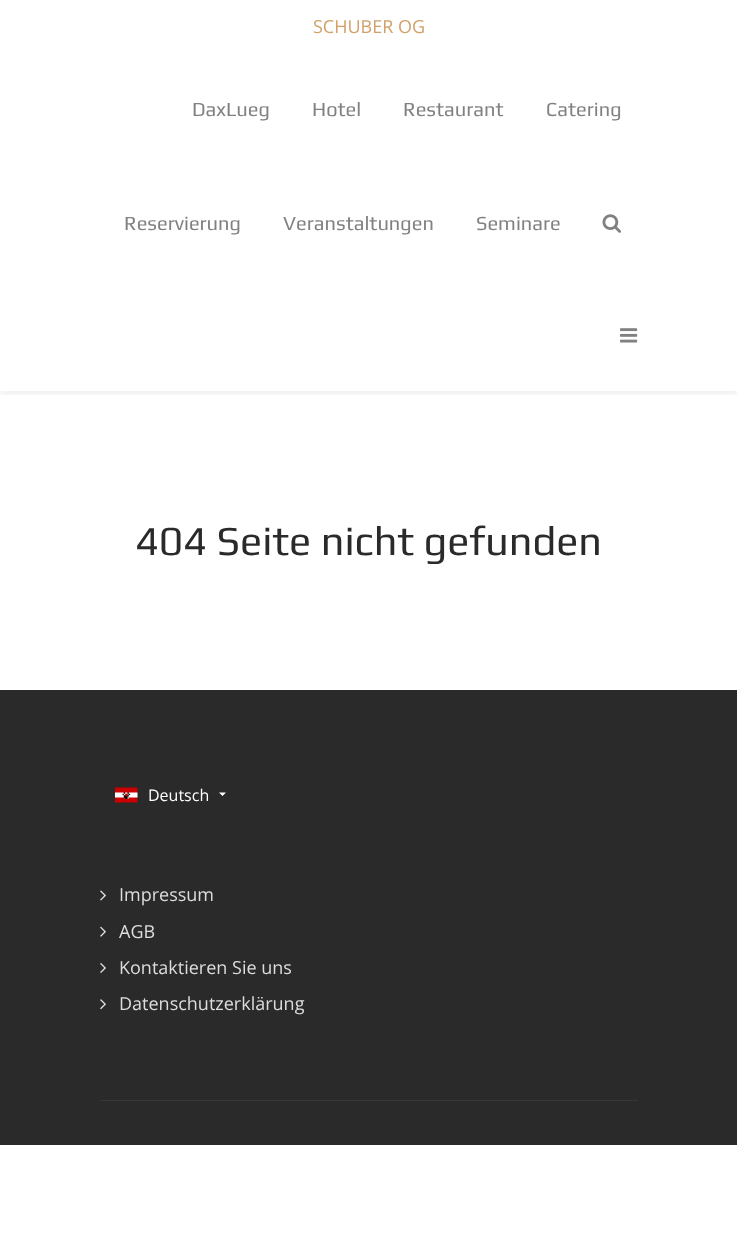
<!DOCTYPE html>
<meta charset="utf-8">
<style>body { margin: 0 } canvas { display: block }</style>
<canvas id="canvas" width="737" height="1242"></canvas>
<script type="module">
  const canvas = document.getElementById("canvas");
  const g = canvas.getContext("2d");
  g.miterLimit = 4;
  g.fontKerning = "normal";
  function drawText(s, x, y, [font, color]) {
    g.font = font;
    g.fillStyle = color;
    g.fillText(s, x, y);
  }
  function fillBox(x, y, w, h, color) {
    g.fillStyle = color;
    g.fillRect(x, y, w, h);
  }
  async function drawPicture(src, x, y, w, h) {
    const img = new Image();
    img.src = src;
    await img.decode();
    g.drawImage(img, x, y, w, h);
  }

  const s1 = ["18px Open Sans", "#D1A068"];
  const s2 = ["20px Play", "#818181"];
  const s3 = ["41.4px Play", "#2A2A2A"];
  const s4 = ["16px Open Sans", "#FFFFFF"];
  const s5 = ["18px Open Sans", "#DDDDDD"];

  fillBox(0, 0, 737, 1242, "#FFFFFF");
  g.save();
  g.beginPath();
  g.rect(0, 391, 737, 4);
  g.clip();
  g.fillStyle = "rgba(0, 0, 0, 0.05)";
  g.filter = "blur(2px)";
  g.beginPath();
  g.rect(0, 4, 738, 391);
  g.fill();
  g.filter = "none";
  g.restore();
  drawText("SCHUBER OG", 313, 33, s1);
  drawText("DaxLueg", 192, 116, s2);
  drawText("Hotel", 312, 116, s2);
  drawText("Restaurant", 403, 116, s2);
  drawText("Catering", 546, 116, s2);
  drawText("Reservierung", 124, 230, s2);
  drawText("Veranstaltungen", 283, 230, s2);
  drawText("Seminare", 476, 230, s2);
  await drawPicture("pic1.png", 602, 214, 19, 19);
  await drawPicture("pic2.png", 620, 328, 18, 15);
  drawText("404 Seite nicht gefunden", 135, 555, s3);
  fillBox(0, 690, 737, 455, "#2A2A2A");
  await drawPicture("pic3.png", 115, 787, 23, 16);
  drawText("Deutsch", 148, 801, s4);
  g.beginPath();
  g.moveTo(219, 792.5);
  g.lineTo(226, 792.5);
  g.lineTo(222.5, 796);
  g.closePath();
  g.fill();
  await drawPicture("pic4.png", 100, 890, 6, 11);
  drawText("Impressum", 119, 901, s5);
  await drawPicture("pic5.png", 100, 926, 6, 11);
  drawText("AGB", 119, 938, s5);
  await drawPicture("pic6.png", 100, 963, 6, 10);
  drawText("Kontaktieren Sie uns", 119, 974, s5);
  await drawPicture("pic7.png", 100, 999, 6, 11);
  drawText("Datenschutzerklärung", 119, 1010, s5);
  fillBox(100, 1100, 538, 1, "#373737");
</script>
